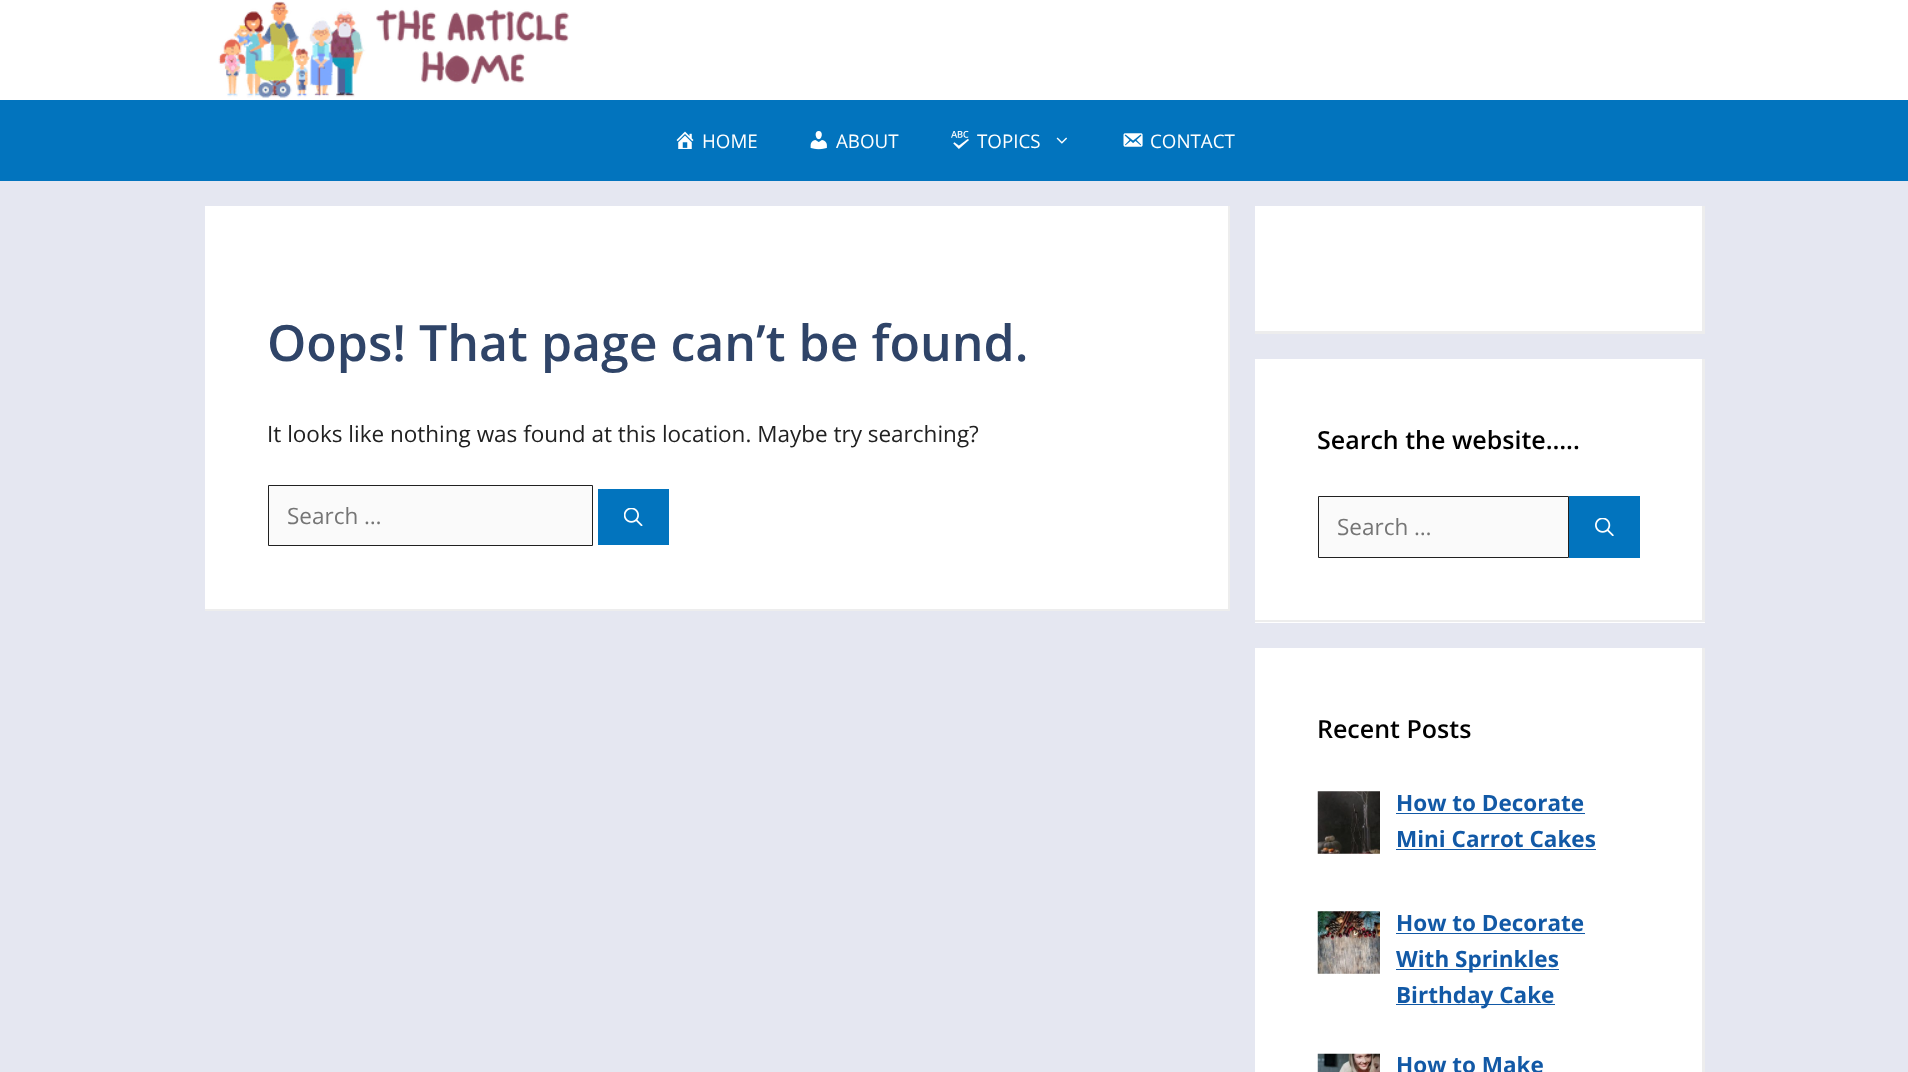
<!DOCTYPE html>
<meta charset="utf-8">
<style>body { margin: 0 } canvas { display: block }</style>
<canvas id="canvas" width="1908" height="1072"></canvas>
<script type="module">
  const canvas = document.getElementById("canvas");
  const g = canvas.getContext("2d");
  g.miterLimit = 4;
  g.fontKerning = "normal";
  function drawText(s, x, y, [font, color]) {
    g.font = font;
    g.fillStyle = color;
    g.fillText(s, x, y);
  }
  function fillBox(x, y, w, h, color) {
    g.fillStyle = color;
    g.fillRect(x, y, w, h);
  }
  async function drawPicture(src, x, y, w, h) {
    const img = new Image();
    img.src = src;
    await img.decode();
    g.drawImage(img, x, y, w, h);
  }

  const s1 = ["18.75px Open Sans", "#FFFFFF"];
  const s2 = ["600 50px Open Sans", "#2F4468"];
  const s3 = ["22.5px Open Sans", "#212121"];
  const s4 = ["22.5px Open Sans", "#757575"];
  const s5 = ["600 25px Open Sans", "#000000"];
  const s6 = ["bold 22.5px Open Sans", "#1259A6"];

  fillBox(0, 0, 1908, 1072, "#E5E7F1");
  fillBox(0, 0, 1908, 100, "#FFFFFF");
  await drawPicture("pic1.png", 218, 1, 351, 97);
  fillBox(0, 100, 1908, 81, "#0274BE");
  await drawPicture("pic2.png", 676, 131, 18, 18);
  drawText("HOME", 702, 148, s1);
  await drawPicture("pic3.png", 810, 131, 17, 19);
  drawText("ABOUT", 836, 148, s1);
  await drawPicture("pic4.png", 951, 130, 18, 19);
  drawText("TOPICS", 977, 148, s1);
  await drawPicture("pic5.png", 1056, 137, 11, 7);
  await drawPicture("pic6.png", 1123, 133, 20, 14);
  drawText("CONTACT", 1150, 148, s1);
  fillBox(205, 206, 1025, 405, "#FFFFFF");
  g.fillStyle = "#EDEDED";
  g.beginPath();
  g.moveTo(1230, 206);
  g.lineTo(1230, 611);
  g.lineTo(1228, 609);
  g.lineTo(1228, 206);
  g.closePath();
  g.fill();
  g.fillStyle = "rgba(0, 0, 0, 0.07)";
  g.beginPath();
  g.moveTo(1230, 611);
  g.lineTo(205, 611);
  g.lineTo(205, 609);
  g.lineTo(1228, 609);
  g.closePath();
  g.fill();
  drawText("Oops! That page can’t be found.", 267, 361, s2);
  drawText("It looks like nothing was found at this location. Maybe try searching?", 267, 442, s3);
  g.fillStyle = "#FAFAFA";
  g.beginPath();
  g.rect(268.5, 485.5, 324, 60);
  g.fill();
  g.strokeStyle = "#212121";
  g.stroke();
  drawText("Search …", 287, 524, s4);
  fillBox(598, 489, 71, 56, "#0274BE");
  await drawPicture("pic7.png", 624, 508, 19, 18);
  fillBox(1255, 206, 450, 128, "#FFFFFF");
  g.fillStyle = "#EDEDED";
  g.beginPath();
  g.moveTo(1705, 206);
  g.lineTo(1705, 334);
  g.lineTo(1702, 331);
  g.lineTo(1702, 206);
  g.closePath();
  g.fill();
  g.fillStyle = "rgba(0, 0, 0, 0.07)";
  g.beginPath();
  g.moveTo(1705, 334);
  g.lineTo(1255, 334);
  g.lineTo(1255, 331);
  g.lineTo(1702, 331);
  g.closePath();
  g.fill();
  fillBox(1255, 359, 450, 264, "#FFFFFF");
  g.fillStyle = "#EDEDED";
  g.beginPath();
  g.moveTo(1705, 359);
  g.lineTo(1705, 622);
  g.lineTo(1702, 620);
  g.lineTo(1702, 359);
  g.closePath();
  g.fill();
  g.fillStyle = "rgba(0, 0, 0, 0.07)";
  g.beginPath();
  g.moveTo(1705, 622);
  g.lineTo(1255, 622);
  g.lineTo(1255, 620);
  g.lineTo(1702, 620);
  g.closePath();
  g.fill();
  drawText("Search the website…..", 1317, 449, s5);
  g.fillStyle = "#FAFAFA";
  g.beginPath();
  g.rect(1318.5, 496.5, 250, 61);
  g.fill();
  g.stroke();
  drawText("Search …", 1337, 535, s4);
  fillBox(1569, 496, 71, 62, "#0274BE");
  await drawPicture("pic8.png", 1595, 518, 19, 18);
  fillBox(1255, 648, 447, 424, "#FFFFFF");
  g.fillStyle = "#EDEDED";
  g.beginPath();
  g.moveTo(1705, 648);
  g.lineTo(1705, 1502);
  g.lineTo(1702, 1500);
  g.lineTo(1702, 648);
  g.closePath();
  g.fill();
  drawText("Recent Posts", 1317, 738, s5);
  await drawPicture("pic9.png", 1317, 791, 63, 63);
  drawText("How to Decorate", 1396, 811, s6);
  fillBox(1396, 813, 189, 1, "#1259A6");
  drawText("Mini Carrot Cakes", 1396, 847, s6);
  fillBox(1396, 849, 200, 1, "#1259A6");
  await drawPicture("pic10.png", 1317, 911, 63, 63);
  drawText("How to Decorate", 1396, 931, s6);
  fillBox(1396, 933, 189, 1, "#1259A6");
  fillBox(1396, 969, 163, 1, "#1259A6");
  drawText("With Sprinkles", 1396, 967, s6);
  fillBox(1396, 1004, 159, 1, "#1259A6");
  drawText("Birthday Cake", 1396, 1003, s6);
  await drawPicture("pic11.png", 1317, 1053, 63, 19);
  drawText("How to Make", 1396, 1073, s6);
</script>
